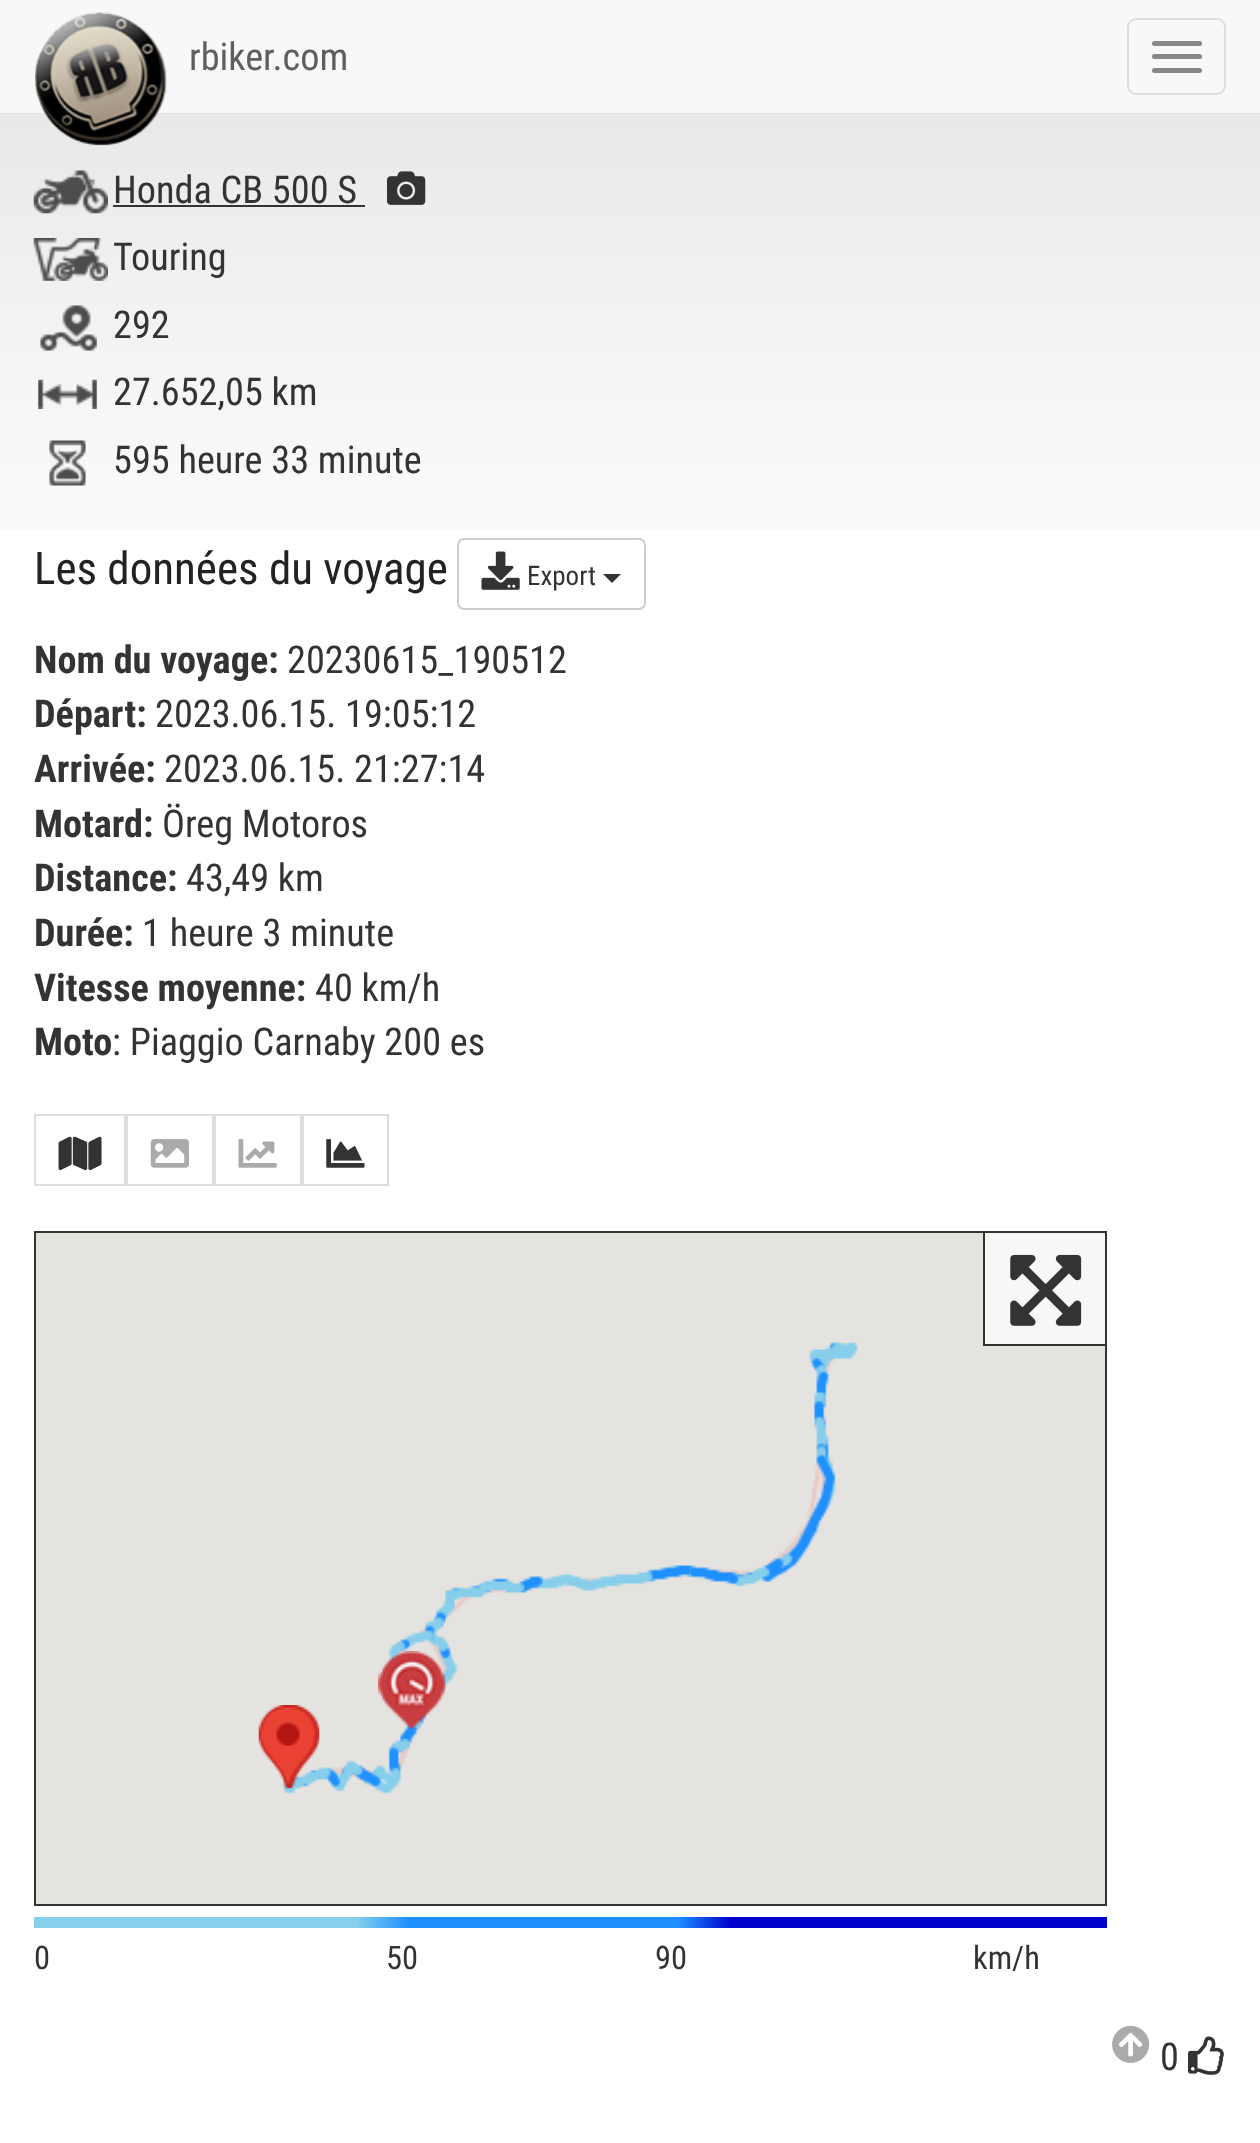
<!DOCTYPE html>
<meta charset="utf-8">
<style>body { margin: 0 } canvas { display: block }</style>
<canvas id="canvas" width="1260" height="2143"></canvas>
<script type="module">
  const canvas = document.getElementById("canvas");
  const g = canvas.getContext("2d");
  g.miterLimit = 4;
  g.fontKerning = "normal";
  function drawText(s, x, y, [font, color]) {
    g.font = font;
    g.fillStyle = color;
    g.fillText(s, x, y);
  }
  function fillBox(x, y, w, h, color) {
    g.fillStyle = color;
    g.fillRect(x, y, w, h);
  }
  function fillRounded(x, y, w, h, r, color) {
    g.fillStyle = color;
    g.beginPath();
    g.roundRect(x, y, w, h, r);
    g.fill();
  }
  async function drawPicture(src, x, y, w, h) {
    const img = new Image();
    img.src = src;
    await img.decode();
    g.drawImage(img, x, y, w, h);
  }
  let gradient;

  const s1 = ["38.25px Roboto Condensed", "#5E5E5E"];
  const s2 = ["38.25px Roboto Condensed", "#333333"];
  const s3 = ["45px Roboto Condensed", "#222222"];
  const s4 = ["27px Roboto Condensed", "#333333"];
  const s5 = ["bold 38.25px Roboto Condensed", "#333333"];
  const s6 = ["32.5px Roboto Condensed", "#333333"];

  fillBox(0, 0, 1260, 2143, "#FFFFFF");
  fillBox(0, 0, 1260, 113, "#F8F8F8");
  fillBox(0, 113, 1260, 2, "#E7E7E7");
  await drawPicture("pic2.png", 0, 115, 1260, 415);
  await drawPicture("pic1.png", 35, 12, 132, 134);
  drawText("rbiker.com", 189, 70, s1);
  g.beginPath();
  g.roundRect(1128, 19, 97, 75, 8);
  g.strokeStyle = "#DDDDDD";
  g.lineWidth = 2;
  g.stroke();
  fillRounded(1152, 41, 50, 5, 2.5, "#888888");
  fillRounded(1152, 54, 50, 5, 2.5, "#888888");
  fillRounded(1152, 68, 50, 5, 2.5, "#888888");
  await drawPicture("pic3.png", 33, 170, 75, 44);
  drawText("Honda CB 500 S", 113, 203, s2);
  fillBox(113, 205, 252, 2, "#333333");
  await drawPicture("pic4.png", 387, 171, 39, 34);
  await drawPicture("pic5.png", 33, 238, 75, 43);
  drawText("Touring", 113, 270, s2);
  await drawPicture("pic6.png", 40, 305, 57, 46);
  drawText("292", 113, 338, s2);
  await drawPicture("pic7.png", 38, 379, 59, 30);
  drawText("27.652,05 km", 113, 405, s2);
  await drawPicture("pic8.png", 49, 440, 37, 46);
  drawText("595 heure 33 minute", 113, 473, s2);
  drawText("Les données du voyage", 34, 584, s3);
  g.beginPath();
  g.roundRect(458, 539, 187, 70, 6);
  g.strokeStyle = "#CCCCCC";
  g.stroke();
  await drawPicture("pic9.png", 481, 551, 39, 39);
  drawText("Export", 527, 585, s4);
  g.beginPath();
  g.moveTo(603, 574);
  g.lineTo(621, 574);
  g.lineTo(612, 583);
  g.closePath();
  g.fill();
  drawText("Nom du voyage:", 34, 673, s5);
  drawText("20230615_190512", 287, 673, s2);
  drawText("Départ:", 34, 727, s5);
  drawText("2023.06.15. 19:05:12", 155, 727, s2);
  drawText("Arrivée:", 34, 782, s5);
  drawText("2023.06.15. 21:27:14", 164, 782, s2);
  drawText("Motard:", 34, 837, s5);
  drawText("Öreg Motoros", 162, 837, s2);
  drawText("Distance:", 34, 891, s5);
  drawText("43,49 km", 186, 891, s2);
  drawText("Durée:", 34, 946, s5);
  drawText("1 heure 3 minute", 142, 946, s2);
  drawText("Vitesse moyenne:", 34, 1001, s5);
  drawText("40 km/h", 315, 1001, s2);
  drawText("Moto", 34, 1055, s5);
  drawText(": Piaggio Carnaby 200 es", 112, 1055, s2);
  g.strokeStyle = "#DDDDDD";
  g.strokeRect(35, 1115, 90, 70);
  await drawPicture("pic10.png", 58, 1136, 44, 35);
  g.strokeRect(127, 1115, 86, 70);
  await drawPicture("pic11.png", 150, 1139, 39, 29);
  g.strokeRect(215, 1115, 86, 70);
  await drawPicture("pic12.png", 238, 1139, 39, 29);
  g.strokeRect(303, 1115, 85, 70);
  await drawPicture("pic13.png", 326, 1139, 39, 29);
  g.strokeStyle = "#333333";
  g.strokeRect(35, 1232, 1071, 673);
  fillBox(36, 1233, 1069, 671, "#E5E3DF");
  await drawPicture("pic15.png", 283, 1565, 408, 229);
  await drawPicture("pic14.png", 690, 1342, 168, 245);
  await drawPicture("pic16.png", 378, 1651, 68, 79);
  await drawPicture("pic18.png", 261, 1705, 59, 84);
  await drawPicture("pic17.png", 258, 1705, 60, 84);
  g.fillStyle = "rgba(255, 255, 255, 0.7)";
  g.beginPath();
  g.rect(984, 1232, 122, 113);
  g.fill();
  g.stroke();
  await drawPicture("pic19.png", 1010, 1254, 72, 72);
  gradient = g.createLinearGradient(34, 1923, 1107, 1923);
  gradient.addColorStop(0, "#87CFEB");
  gradient.addColorStop(0.3, "#87CFEB");
  gradient.addColorStop(0.35, "#1E8FFF");
  gradient.addColorStop(0.6, "#1E8FFF");
  gradient.addColorStop(0.65, "#0000CD");
  gradient.addColorStop(1, "#0000CD");
  g.fillStyle = gradient;
  g.fillRect(34, 1917, 1073, 11);
  drawText("0", 34, 1969, s6);
  drawText("50", 386, 1969, s6);
  drawText("90", 655, 1969, s6);
  drawText("km/h", 973, 1969, s6);
  drawText("0", 1160, 2070, s2);
  await drawPicture("pic20.png", 1188, 2036, 36, 39);
  await drawPicture("pic21.png", 1112, 2025, 38, 38);
</script>
